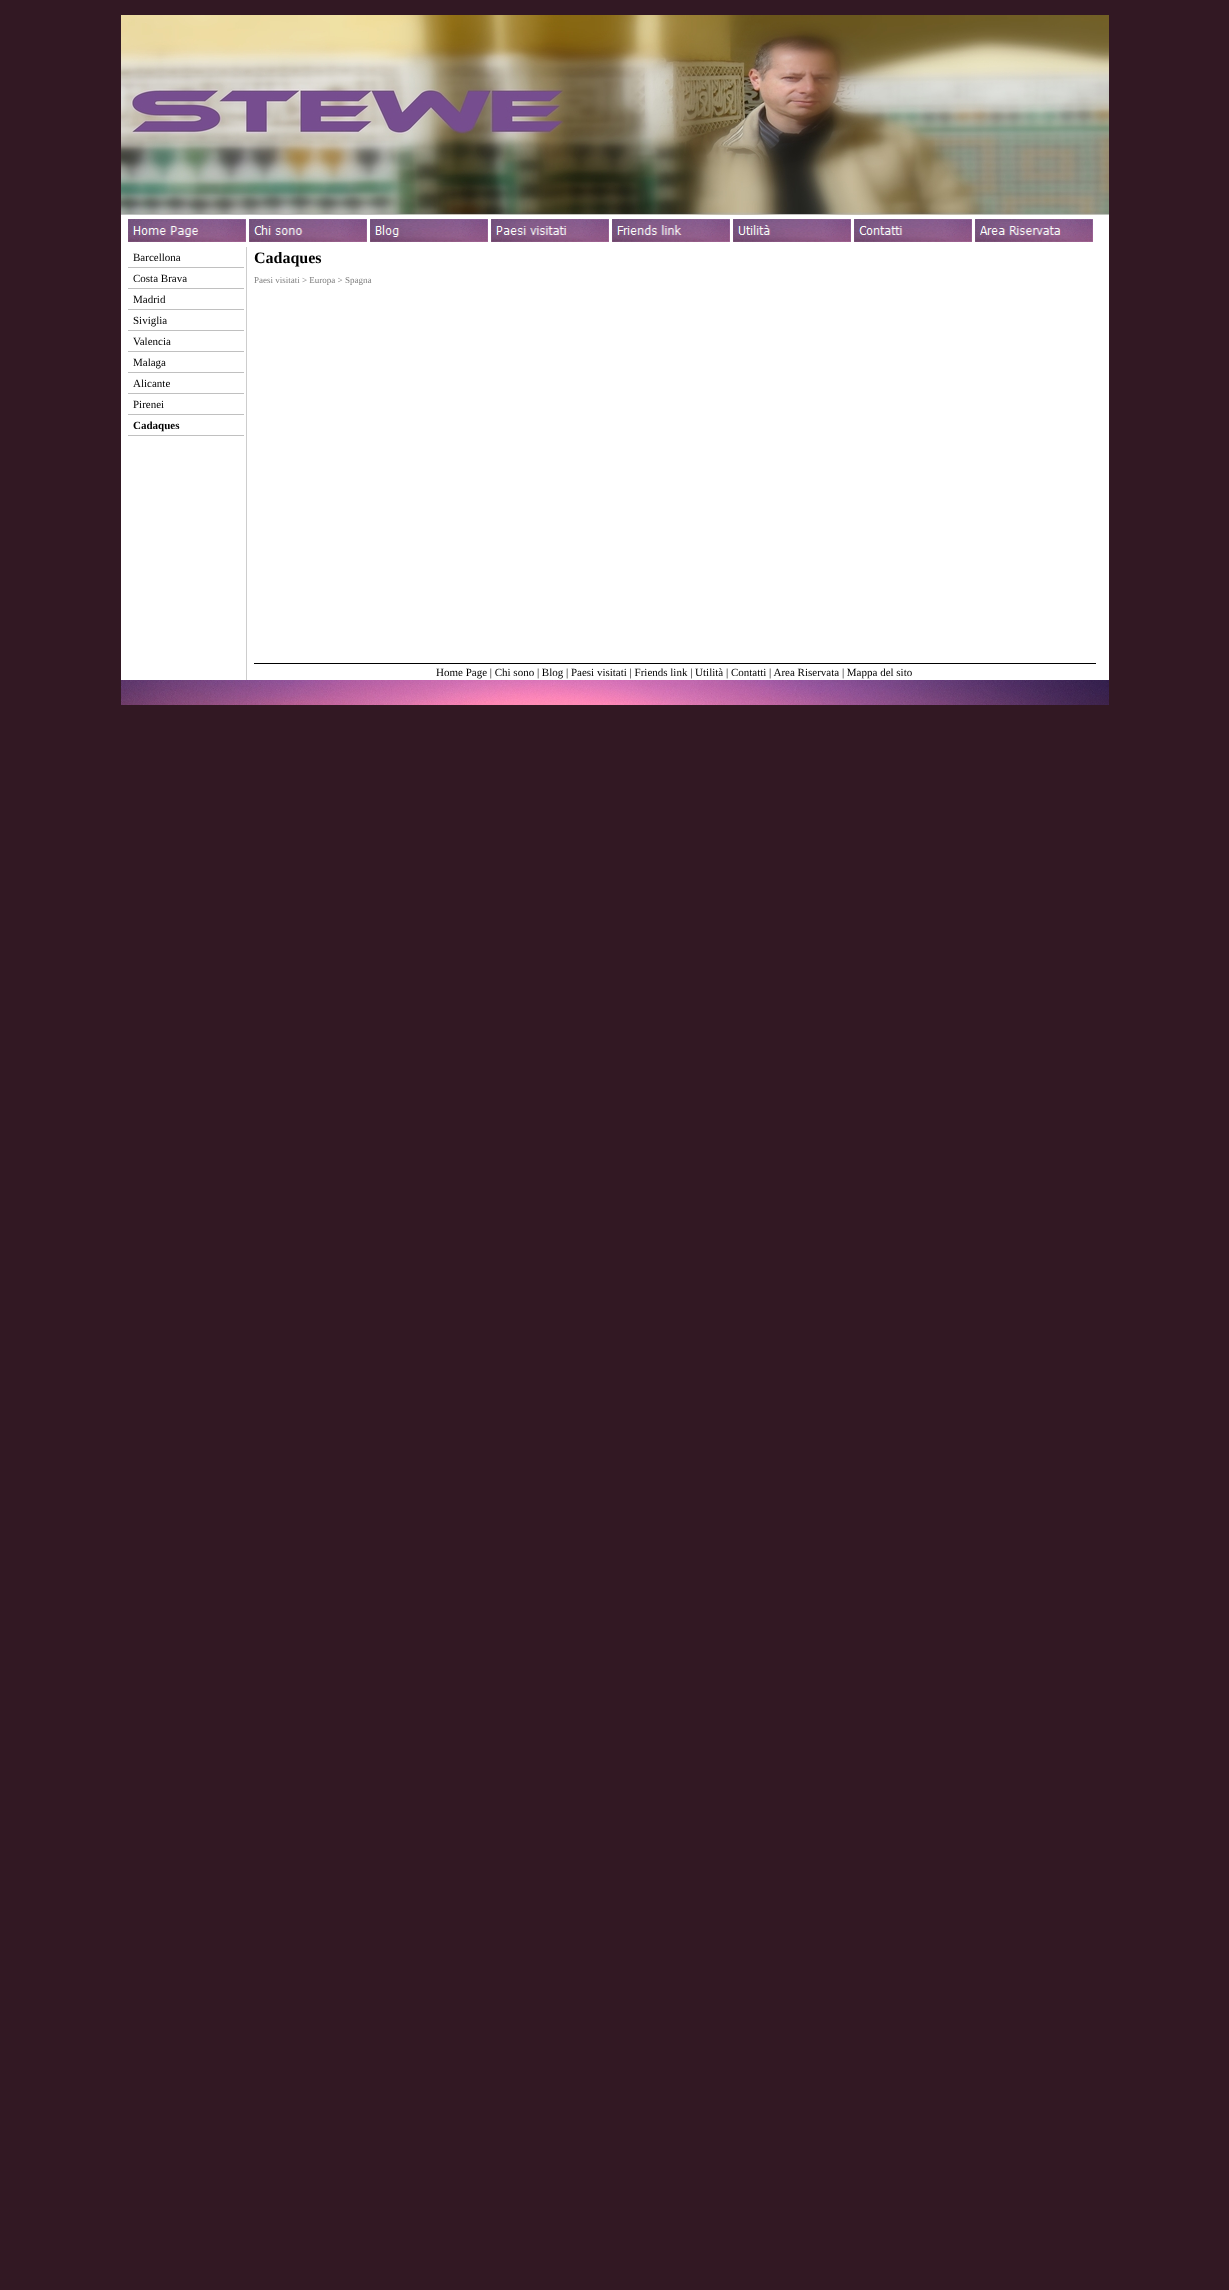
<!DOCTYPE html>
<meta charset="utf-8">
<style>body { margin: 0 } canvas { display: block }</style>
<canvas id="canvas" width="1229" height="2290"></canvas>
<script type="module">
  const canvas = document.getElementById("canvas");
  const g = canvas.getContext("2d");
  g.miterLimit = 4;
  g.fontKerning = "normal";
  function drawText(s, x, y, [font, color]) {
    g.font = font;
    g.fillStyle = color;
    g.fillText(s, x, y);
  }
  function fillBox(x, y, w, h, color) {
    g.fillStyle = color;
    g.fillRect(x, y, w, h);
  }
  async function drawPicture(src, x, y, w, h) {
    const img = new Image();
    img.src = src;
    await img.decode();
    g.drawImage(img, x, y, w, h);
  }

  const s1 = ["11px Liberation Serif", "#000000"];
  const s2 = ["bold 11px Liberation Serif", "#000000"];
  const s3 = ["bold 16px Liberation Serif", "#000000"];
  const s4 = ["9px Liberation Serif", "#808080"];

  fillBox(0, 0, 1229, 2290, "#321823");
  await drawPicture("pic1.png", 121, 15, 988, 200);
  fillBox(121, 215, 988, 465, "#FFFFFF");
  await drawPicture("pic2.png", 128, 219, 118, 23);
  await drawPicture("pic3.png", 249, 219, 118, 23);
  await drawPicture("pic4.png", 370, 219, 118, 23);
  await drawPicture("pic5.png", 491, 219, 118, 23);
  await drawPicture("pic6.png", 612, 219, 118, 23);
  await drawPicture("pic7.png", 733, 219, 118, 23);
  await drawPicture("pic8.png", 854, 219, 118, 23);
  await drawPicture("pic9.png", 975, 219, 118, 23);
  fillBox(128, 267, 116, 1, "#C0C0C0");
  drawText("Barcellona", 133, 261, s1);
  fillBox(128, 288, 116, 1, "#C0C0C0");
  drawText("Costa Brava", 133, 282, s1);
  fillBox(128, 309, 116, 1, "#C0C0C0");
  drawText("Madrid", 133, 303, s1);
  fillBox(128, 330, 116, 1, "#C0C0C0");
  drawText("Siviglia", 133, 324, s1);
  fillBox(128, 351, 116, 1, "#C0C0C0");
  drawText("Valencia", 133, 345, s1);
  fillBox(128, 372, 116, 1, "#C0C0C0");
  drawText("Malaga", 133, 366, s1);
  fillBox(128, 393, 116, 1, "#C0C0C0");
  drawText("Alicante", 133, 387, s1);
  fillBox(128, 414, 116, 1, "#C0C0C0");
  drawText("Pirenei", 133, 408, s1);
  fillBox(128, 435, 116, 1, "#C0C0C0");
  drawText("Cadaques", 133, 429, s2);
  fillBox(246, 247, 1, 433, "#CDCDCD");
  drawText("Cadaques", 254, 263, s3);
  drawText("Paesi visitati > Europa > Spagna", 254, 283, s4);
  fillBox(254, 663, 842, 1, "#000000");
  drawText("Home Page | Chi sono | Blog | Paesi visitati | Friends link | Utilità | Contatti | Area Riservata | Mappa del sito", 436, 676, s1);
  await drawPicture("pic10.png", 121, 680, 988, 25);
</script>
